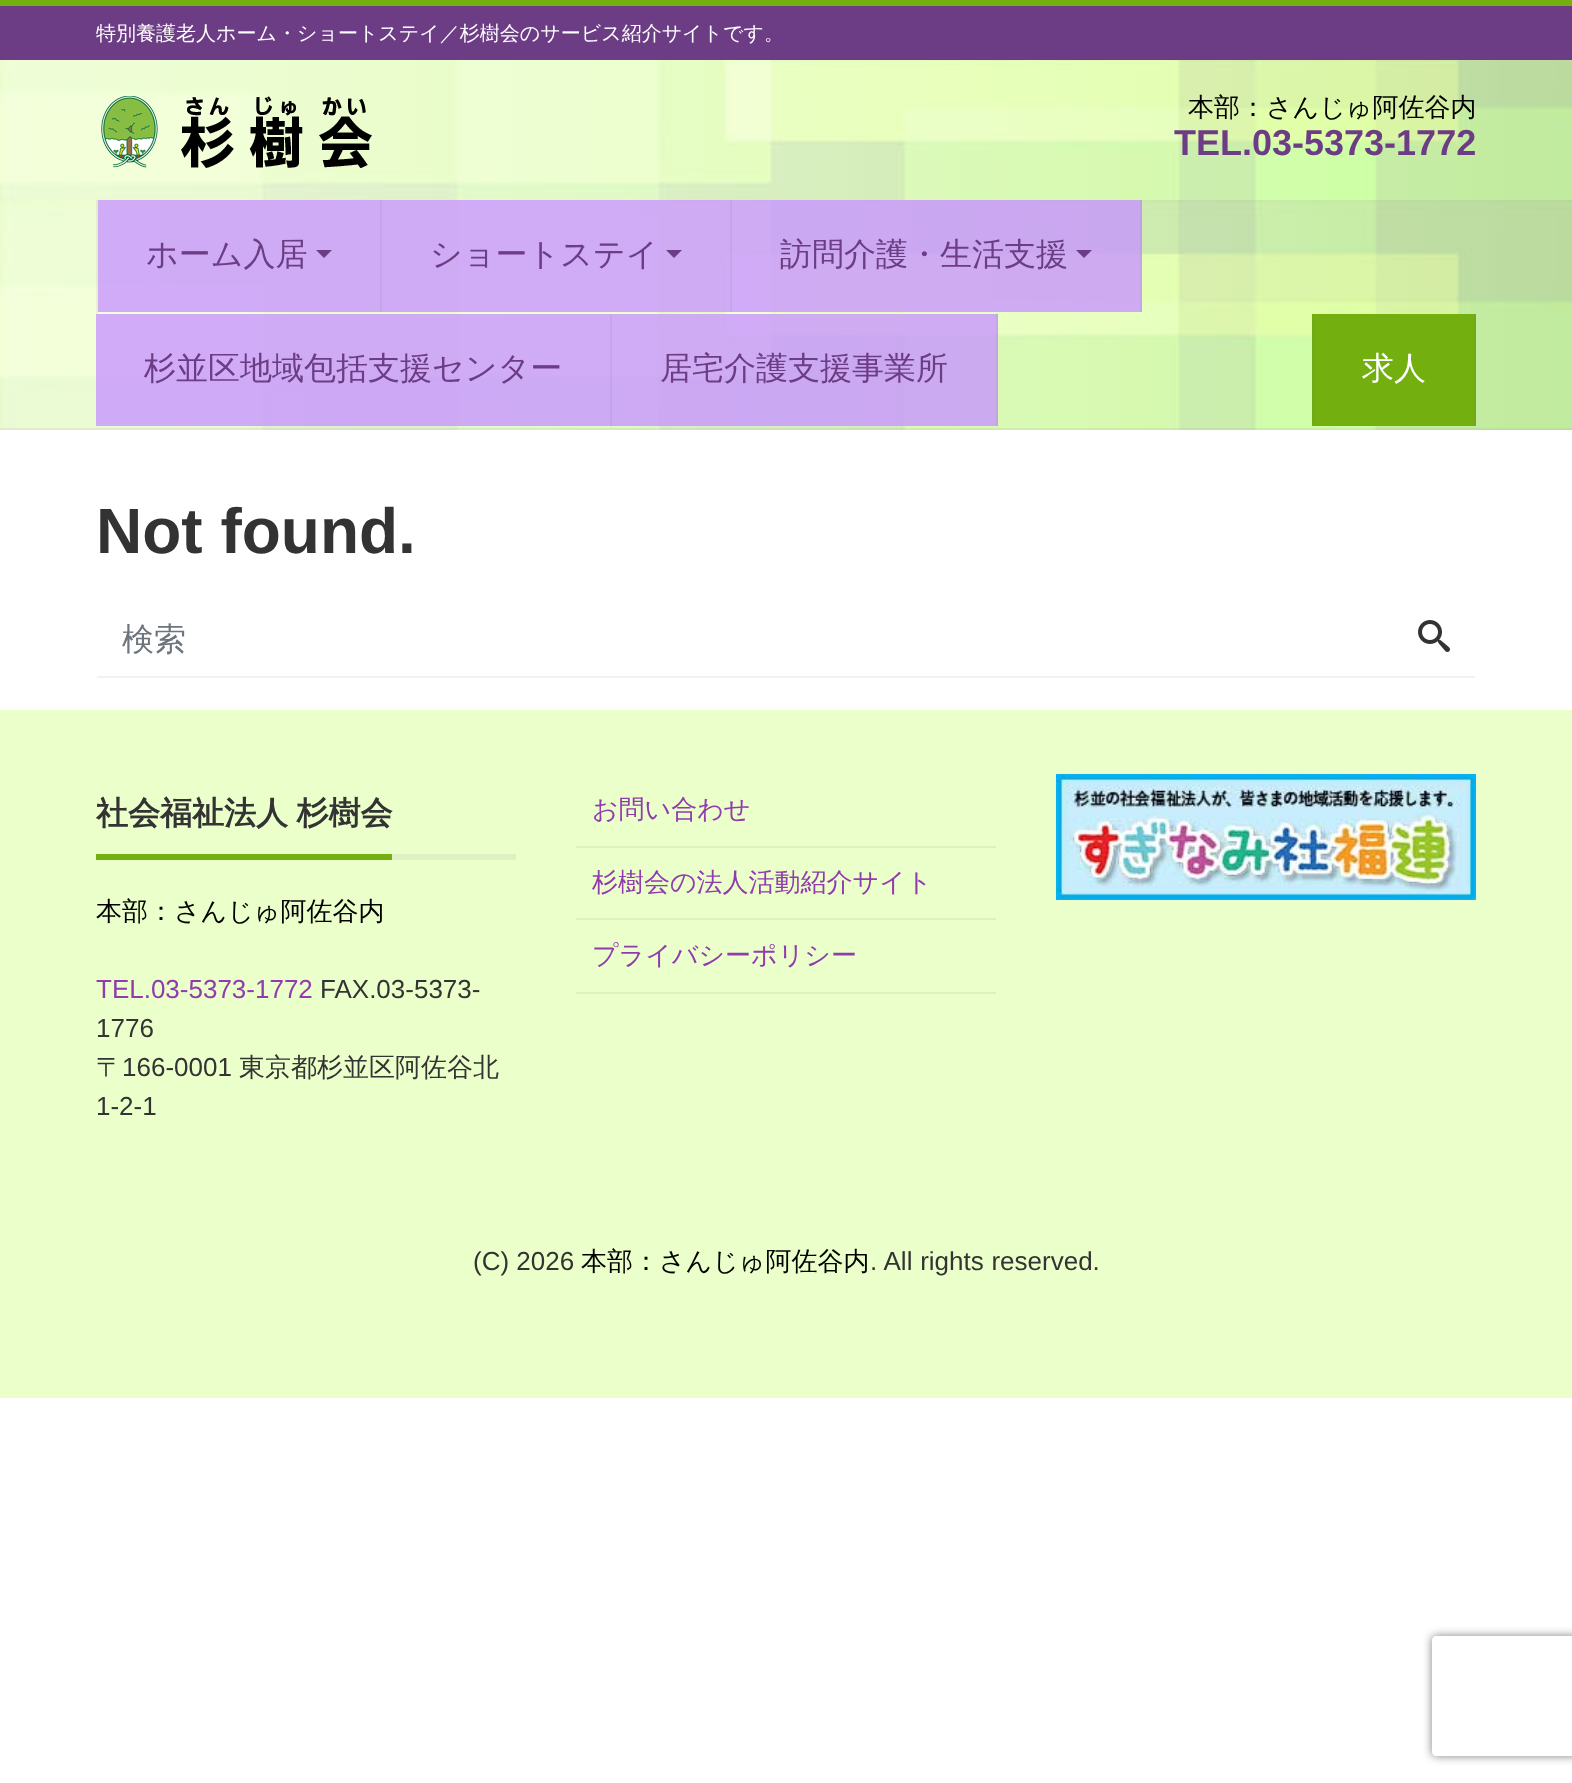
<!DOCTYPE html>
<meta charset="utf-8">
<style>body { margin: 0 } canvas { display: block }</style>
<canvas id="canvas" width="1572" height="1783"></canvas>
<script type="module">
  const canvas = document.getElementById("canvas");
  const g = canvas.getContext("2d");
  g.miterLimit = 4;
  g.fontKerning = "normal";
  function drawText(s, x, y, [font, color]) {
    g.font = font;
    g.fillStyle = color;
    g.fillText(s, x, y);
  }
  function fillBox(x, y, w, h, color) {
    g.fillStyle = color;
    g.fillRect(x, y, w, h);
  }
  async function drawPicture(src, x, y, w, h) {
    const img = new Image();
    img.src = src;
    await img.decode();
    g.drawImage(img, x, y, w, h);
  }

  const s1 = ["500 20px WenQuanYi Zen Hei", "#FFFFFF"];
  const s2 = ["500 26px WenQuanYi Zen Hei", "#000000"];
  const s3 = ["bold 36px Liberation Sans", "#6C3D84"];
  const s4 = ["500 32px WenQuanYi Zen Hei", "#6C3D84"];
  const s5 = ["500 32px WenQuanYi Zen Hei", "#FFFFFF"];
  const s6 = ["bold 64px Liberation Sans", "#333333"];
  const s7 = ["500 32px WenQuanYi Zen Hei", "#6C757D"];
  const s8 = ["bold 32px WenQuanYi Zen Hei", "#333333"];
  const s9 = ["26px Liberation Sans", "#923BAF"];
  const s10 = ["26px Liberation Sans", "#333333"];
  const s11 = ["500 26px WenQuanYi Zen Hei", "#333333"];
  const s12 = ["500 26px WenQuanYi Zen Hei", "#923BAF"];

  fillBox(0, 0, 1572, 1783, "#FFFFFF");
  await drawPicture("pic1.png", 0, 60, 1572, 140);
  fillBox(0, 0, 1572, 6, "#72AF0F");
  fillBox(0, 6, 1572, 54, "#6C3D84");
  drawText("特別養護老人ホーム・ショートステイ／杉樹会のサービス紹介サイトです。", 96, 40, s1);
  await drawPicture("pic2.png", 101, 96, 271, 72);
  drawText("本部：さんじゅ阿佐谷内", 1188, 116, s2);
  drawText("TEL.03-5373-1772", 1174, 155, s3);
  await drawPicture("pic3.png", 0, 200, 1572, 230);
  fillBox(0, 428, 1572, 2, "rgba(119, 119, 119, 0.1)");
  g.beginPath();
  g.moveTo(96, 314);
  g.lineTo(96, 200);
  g.lineTo(98, 200);
  g.lineTo(98, 312);
  g.closePath();
  g.fill();
  fillBox(98, 200, 282, 112, "rgba(200, 150, 255, 0.8)");
  fillBox(380, 200, 2, 112, "#C6A5E8");
  drawText("ホーム入居", 146, 265, s4);
  g.beginPath();
  g.moveTo(316, 250);
  g.lineTo(332, 250);
  g.lineTo(324, 258);
  g.closePath();
  g.fill();
  fillBox(382, 200, 350, 112, "rgba(200, 150, 255, 0.8)");
  fillBox(730, 200, 2, 112, "rgba(119, 119, 119, 0.1)");
  drawText("ショートステイ", 430, 265, s4);
  g.beginPath();
  g.moveTo(666, 250);
  g.lineTo(682, 250);
  g.lineTo(674, 258);
  g.closePath();
  g.fill();
  fillBox(732, 200, 410, 112, "rgba(200, 150, 255, 0.8)");
  fillBox(1140, 200, 2, 112, "rgba(119, 119, 119, 0.1)");
  drawText("訪問介護・生活支援", 780, 265, s4);
  g.beginPath();
  g.moveTo(1076, 250);
  g.lineTo(1092, 250);
  g.lineTo(1084, 258);
  g.closePath();
  g.fill();
  fillBox(96, 314, 516, 112, "rgba(200, 150, 255, 0.8)");
  fillBox(610, 314, 2, 112, "rgba(119, 119, 119, 0.1)");
  drawText("杉並区地域包括支援センター", 144, 379, s4);
  fillBox(612, 314, 386, 112, "rgba(200, 150, 255, 0.8)");
  fillBox(996, 314, 2, 112, "rgba(119, 119, 119, 0.1)");
  drawText("居宅介護支援事業所", 660, 379, s4);
  fillBox(1314, 314, 160, 112, "#72AF0F");
  fillBox(1474, 314, 2, 112, "#73A919");
  fillBox(1312, 314, 2, 112, "#73A919");
  drawText("求人", 1362, 379, s5);
  drawText("Not found.", 96, 553, s6);
  g.fillStyle = "#F1F1F1";
  g.beginPath();
  g.moveTo(1476, 678);
  g.lineTo(96, 678);
  g.lineTo(98, 676);
  g.lineTo(1474, 676);
  g.closePath();
  g.fill();
  drawText("検索", 122, 650, s7);
  await drawPicture("pic4.png", 1418, 620, 32, 32);
  fillBox(0, 710, 1572, 688, "#EAFFCA");
  fillBox(392, 854, 124, 6, "#DEF1C2");
  fillBox(96, 854, 296, 6, "#72AF0F");
  g.wordSpacing = "-1px";
  drawText("社会福祉法人 杉樹会", 96, 824, s8);
  g.wordSpacing = "0px";
  drawText("本部：さんじゅ阿佐谷内", 96, 920, s2);
  drawText("TEL.03-5373-1772", 96, 998, s9);
  drawText("FAX.03-5373-", 320, 998, s10);
  drawText("1776", 96, 1037, s10);
  drawText("〒", 96, 1076, s11);
  drawText("166-0001", 122, 1076, s10);
  drawText("東京都杉並区阿佐谷北", 239, 1076, s11);
  drawText("1-2-1", 96, 1115, s10);
  fillBox(576, 846, 420, 2, "#DEF1C2");
  drawText("お問い合わせ", 592, 818, s12);
  fillBox(576, 918, 420, 2, "#DEF1C2");
  drawText("杉樹会の法人活動紹介サイト", 592, 891, s12);
  fillBox(576, 992, 420, 2, "#DEF1C2");
  drawText("プライバシーポリシー", 592, 964, s12);
  await drawPicture("pic5.png", 1056, 774, 420, 126);
  drawText("(C) 2026", 473, 1270, s10);
  drawText("本部：さんじゅ阿佐谷内", 581, 1270, s2);
  g.wordSpacing = "0.5px";
  drawText(". All rights reserved.", 870, 1270, s10);
  g.save();
  g.beginPath();
  g.moveTo(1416, 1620);
  g.lineTo(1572, 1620);
  g.lineTo(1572, 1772);
  g.lineTo(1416, 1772);
  g.closePath();
  g.moveTo(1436, 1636);
  g.lineTo(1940, 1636);
  g.bezierCurveTo(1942, 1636, 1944, 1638, 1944, 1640);
  g.lineTo(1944, 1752);
  g.bezierCurveTo(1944, 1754, 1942, 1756, 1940, 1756);
  g.lineTo(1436, 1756);
  g.bezierCurveTo(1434, 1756, 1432, 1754, 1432, 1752);
  g.lineTo(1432, 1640);
  g.bezierCurveTo(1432, 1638, 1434, 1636, 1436, 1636);
  g.closePath();
  g.clip("evenodd");
  g.fillStyle = "#808080";
  g.filter = "blur(5px)";
  g.beginPath();
  g.roundRect(1432, 1636, 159, 120, 4);
  g.fill();
  g.filter = "none";
  g.restore();
</script>
